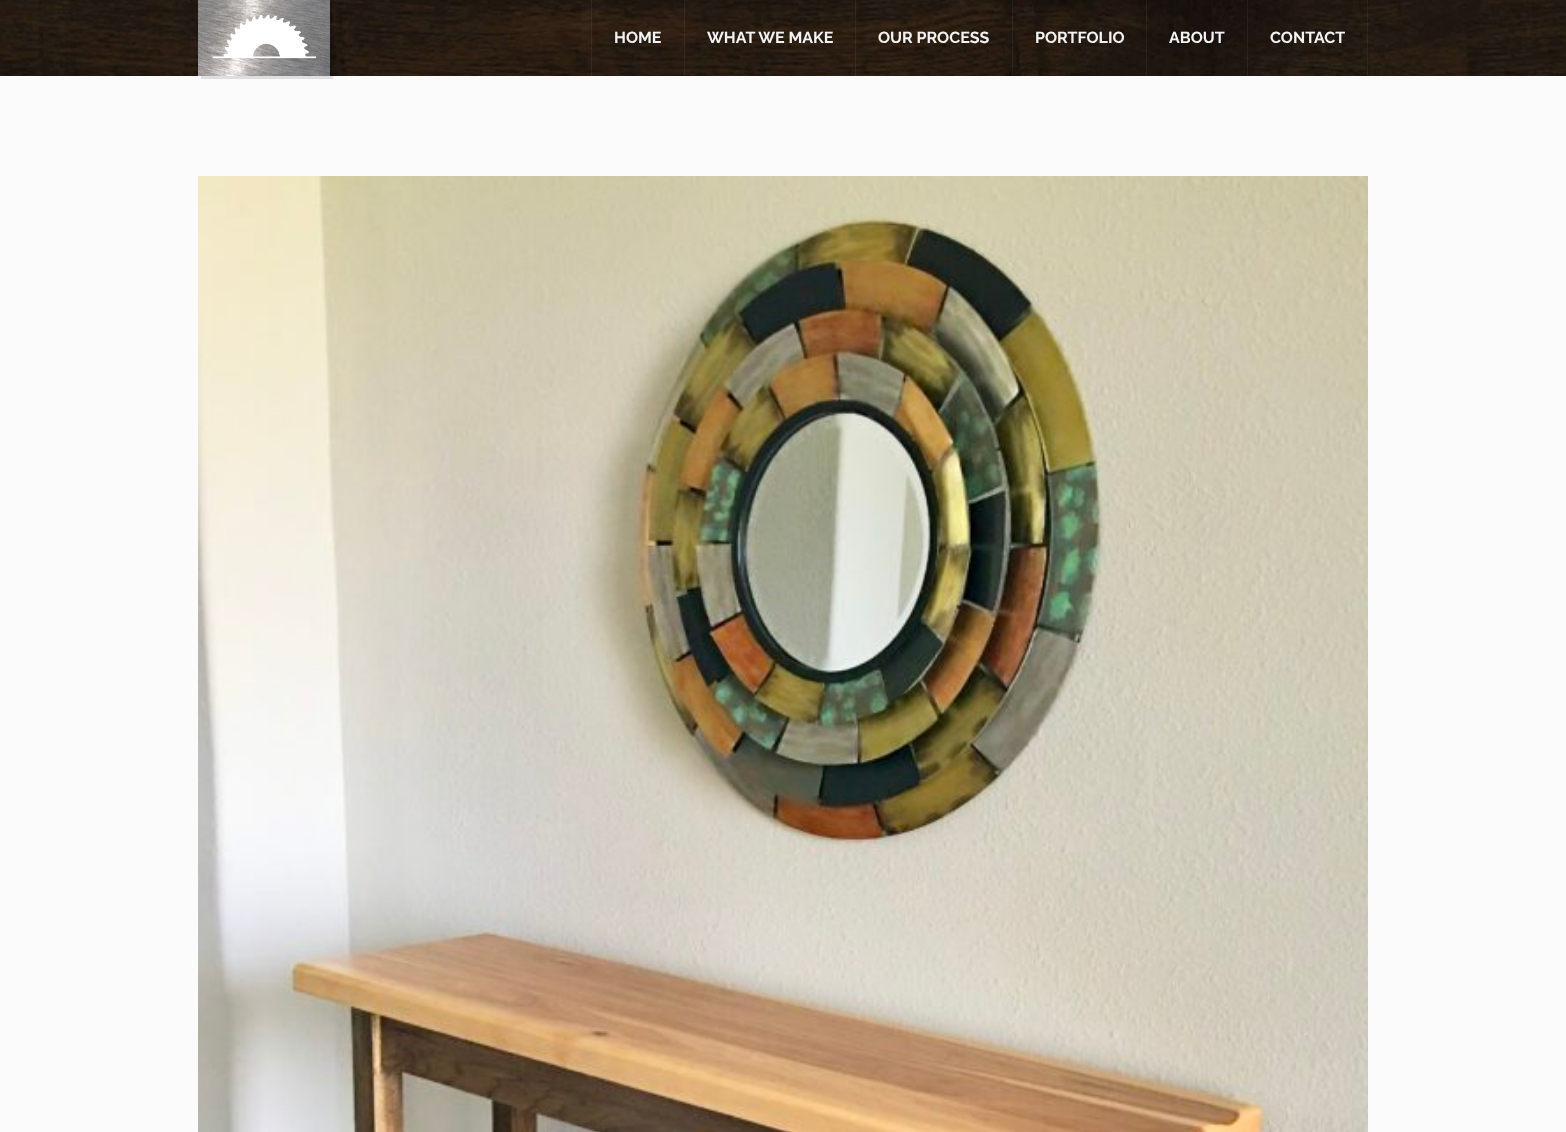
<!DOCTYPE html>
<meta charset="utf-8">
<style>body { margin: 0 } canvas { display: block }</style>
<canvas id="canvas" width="1566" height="1132"></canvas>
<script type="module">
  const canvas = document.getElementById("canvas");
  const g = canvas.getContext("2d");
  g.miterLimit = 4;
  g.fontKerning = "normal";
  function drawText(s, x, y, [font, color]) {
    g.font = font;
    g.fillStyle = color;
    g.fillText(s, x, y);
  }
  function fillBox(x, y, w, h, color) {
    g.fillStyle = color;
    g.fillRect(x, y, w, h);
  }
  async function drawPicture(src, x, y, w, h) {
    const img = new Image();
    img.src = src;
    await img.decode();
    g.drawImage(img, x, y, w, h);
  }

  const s1 = ["bold 16px Raleway", "#F3F3F3"];

  fillBox(0, 0, 1566, 1132, "#FBFBFB");
  await drawPicture("pic1.png", 0, 0, 1566, 76);
  g.fillStyle = "rgba(0, 0, 0, 0.11)";
  g.beginPath();
  g.moveTo(201, 76);
  g.lineTo(201, 79);
  g.lineTo(333, 79);
  g.lineTo(333, 3);
  g.lineTo(330, 3);
  g.lineTo(330, 76);
  g.closePath();
  g.fill();
  await drawPicture("pic2.png", 198, 0, 132, 76);
  await drawPicture("pic3.png", 212, 14, 105, 45);
  fillBox(684, 0, 1, 76, "rgba(255, 255, 255, 0.06)");
  fillBox(591, 0, 1, 76, "rgba(255, 255, 255, 0.06)");
  drawText("HOME", 614, 43, s1);
  fillBox(855, 0, 1, 76, "rgba(255, 255, 255, 0.06)");
  drawText("WHAT WE MAKE", 707, 43, s1);
  fillBox(1012, 0, 1, 76, "rgba(255, 255, 255, 0.06)");
  drawText("OUR PROCESS", 878, 43, s1);
  fillBox(1146, 0, 1, 76, "rgba(255, 255, 255, 0.06)");
  drawText("PORTFOLIO", 1035, 43, s1);
  fillBox(1247, 0, 1, 76, "rgba(255, 255, 255, 0.06)");
  drawText("ABOUT", 1169, 43, s1);
  fillBox(1367, 0, 1, 76, "rgba(255, 255, 255, 0.06)");
  drawText("CONTACT", 1270, 43, s1);
  await drawPicture("pic4.png", 198, 176, 1170, 956);
</script>
